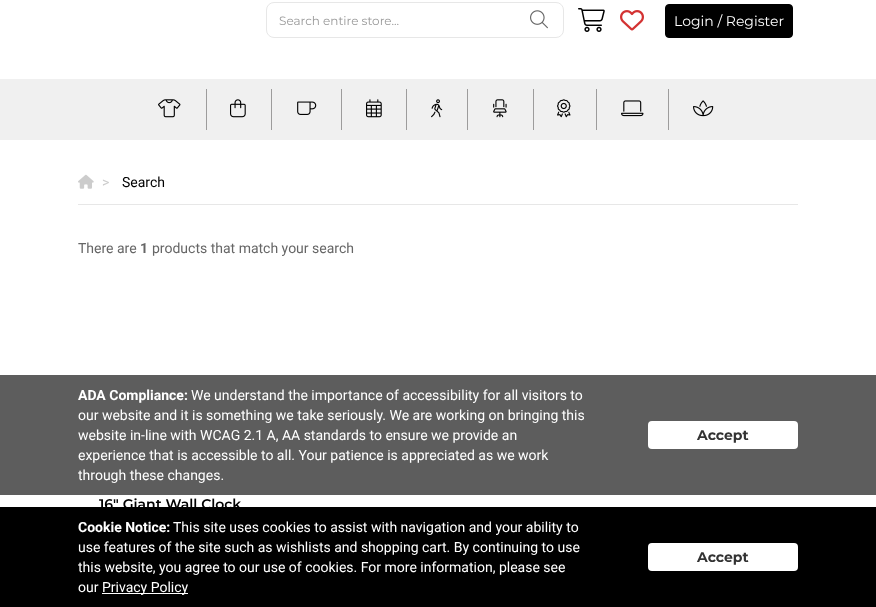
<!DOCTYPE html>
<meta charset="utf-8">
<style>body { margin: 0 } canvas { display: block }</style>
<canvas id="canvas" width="876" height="607"></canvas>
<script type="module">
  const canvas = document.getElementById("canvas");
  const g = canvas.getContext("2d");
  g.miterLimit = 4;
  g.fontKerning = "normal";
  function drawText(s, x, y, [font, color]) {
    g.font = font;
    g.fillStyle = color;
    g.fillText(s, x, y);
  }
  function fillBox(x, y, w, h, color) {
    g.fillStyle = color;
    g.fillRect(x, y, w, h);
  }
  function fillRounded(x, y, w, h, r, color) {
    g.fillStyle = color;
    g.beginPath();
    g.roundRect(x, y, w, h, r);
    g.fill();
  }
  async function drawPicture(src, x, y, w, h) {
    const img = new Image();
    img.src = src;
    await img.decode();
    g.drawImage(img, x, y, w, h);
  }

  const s1 = ["12px Montserrat", "#999999"];
  const s2 = ["14px Montserrat", "#FFFFFF"];
  const s3 = ["14px Roboto", "#CCCCCC"];
  const s4 = ["14px Roboto", "#000000"];
  const s5 = ["14px Roboto", "#666666"];
  const s6 = ["bold 14px Roboto", "#666666"];
  const s7 = ["600 14px Montserrat", "#000000"];
  const s8 = ["bold 14px Roboto", "#FFFFFF"];
  const s9 = ["14px Roboto", "#FFFFFF"];
  const s10 = ["bold 14px Montserrat", "#333333"];

  fillBox(0, 0, 876, 607, "#FFFFFF");
  g.beginPath();
  g.roundRect(266.5, 2.5, 297, 35, 7.5);
  g.strokeStyle = "#E7E7E7";
  g.stroke();
  drawText("Search entire store...", 279, 25, s1);
  await drawPicture("pic1.png", 530, 10, 18, 19);
  await drawPicture("pic2.png", 578, 8, 27, 24);
  await drawPicture("pic3.png", 620, 10, 24, 21);
  g.fillStyle = "#000000";
  g.beginPath();
  g.roundRect(665.5, 4.5, 127, 33, 3.5);
  g.fill();
  g.strokeStyle = "#000000";
  g.stroke();
  drawText("Login / Register", 674, 26, s2);
  fillBox(0, 79, 876, 61, "#F0F0F0");
  fillBox(206, 89, 1, 41, "#9D9C9C");
  await drawPicture("pic4.png", 158, 99, 23, 19);
  fillBox(271, 89, 1, 41, "#9D9C9C");
  await drawPicture("pic5.png", 230, 99, 16, 19);
  fillBox(341, 89, 1, 41, "#9D9C9C");
  await drawPicture("pic6.png", 297, 101, 20, 14);
  fillBox(406, 89, 1, 41, "#9D9C9C");
  await drawPicture("pic7.png", 366, 99, 16, 19);
  fillBox(467, 89, 1, 41, "#9D9C9C");
  await drawPicture("pic8.png", 431, 99, 12, 19);
  fillBox(533, 89, 1, 41, "#9D9C9C");
  await drawPicture("pic9.png", 493, 99, 14, 19);
  fillBox(596, 89, 1, 41, "#9D9C9C");
  await drawPicture("pic10.png", 557, 99, 14, 19);
  fillBox(668, 89, 1, 41, "#9D9C9C");
  await drawPicture("pic11.png", 621, 100, 23, 17);
  await drawPicture("pic12.png", 693, 100, 21, 17);
  fillBox(78, 204, 720, 1, "#E7E7E7");
  await drawPicture("pic13.png", 78, 174, 16, 15);
  drawText(">", 102, 187, s3);
  drawText("Search", 122, 187, s4);
  drawText("There are", 78, 253, s5);
  drawText("1", 140, 253, s6);
  drawText("products that match your search", 152, 253, s5);
  drawText("16\" Giant Wall Clock", 99, 509, s7);
  fillBox(0, 375, 876, 120, "#5D5D5D");
  drawText("ADA Compliance:", 78, 400, s8);
  drawText("We understand the importance of accessibility for all visitors to", 191, 400, s9);
  drawText("our website and it is something we take seriously. We are working on bringing this", 78, 420, s9);
  drawText("website in-line with WCAG 2.1 A, AA standards to ensure we provide an", 78, 440, s9);
  drawText("experience that is accessible to all. Your patience is appreciated as we work", 78, 460, s9);
  drawText("through these changes.", 78, 480, s9);
  fillRounded(648, 421, 150, 28, 4, "#FFFFFF");
  drawText("Accept", 697, 440, s10);
  fillBox(0, 507, 876, 100, "#000000");
  drawText("Cookie Notice:", 78, 532, s8);
  drawText("This site uses cookies to assist with navigation and your ability to", 173, 532, s9);
  drawText("use features of the site such as wishlists and shopping cart. By continuing to use", 78, 552, s9);
  drawText("this website, you agree to our use of cookies. For more information, please see", 78, 572, s9);
  drawText("our", 78, 592, s9);
  fillBox(102, 593, 86, 1, "#FFFFFF");
  drawText("Privacy Policy", 102, 592, s9);
  fillRounded(648, 543, 150, 28, 4, "#FFFFFF");
  drawText("Accept", 697, 562, s10);
</script>
